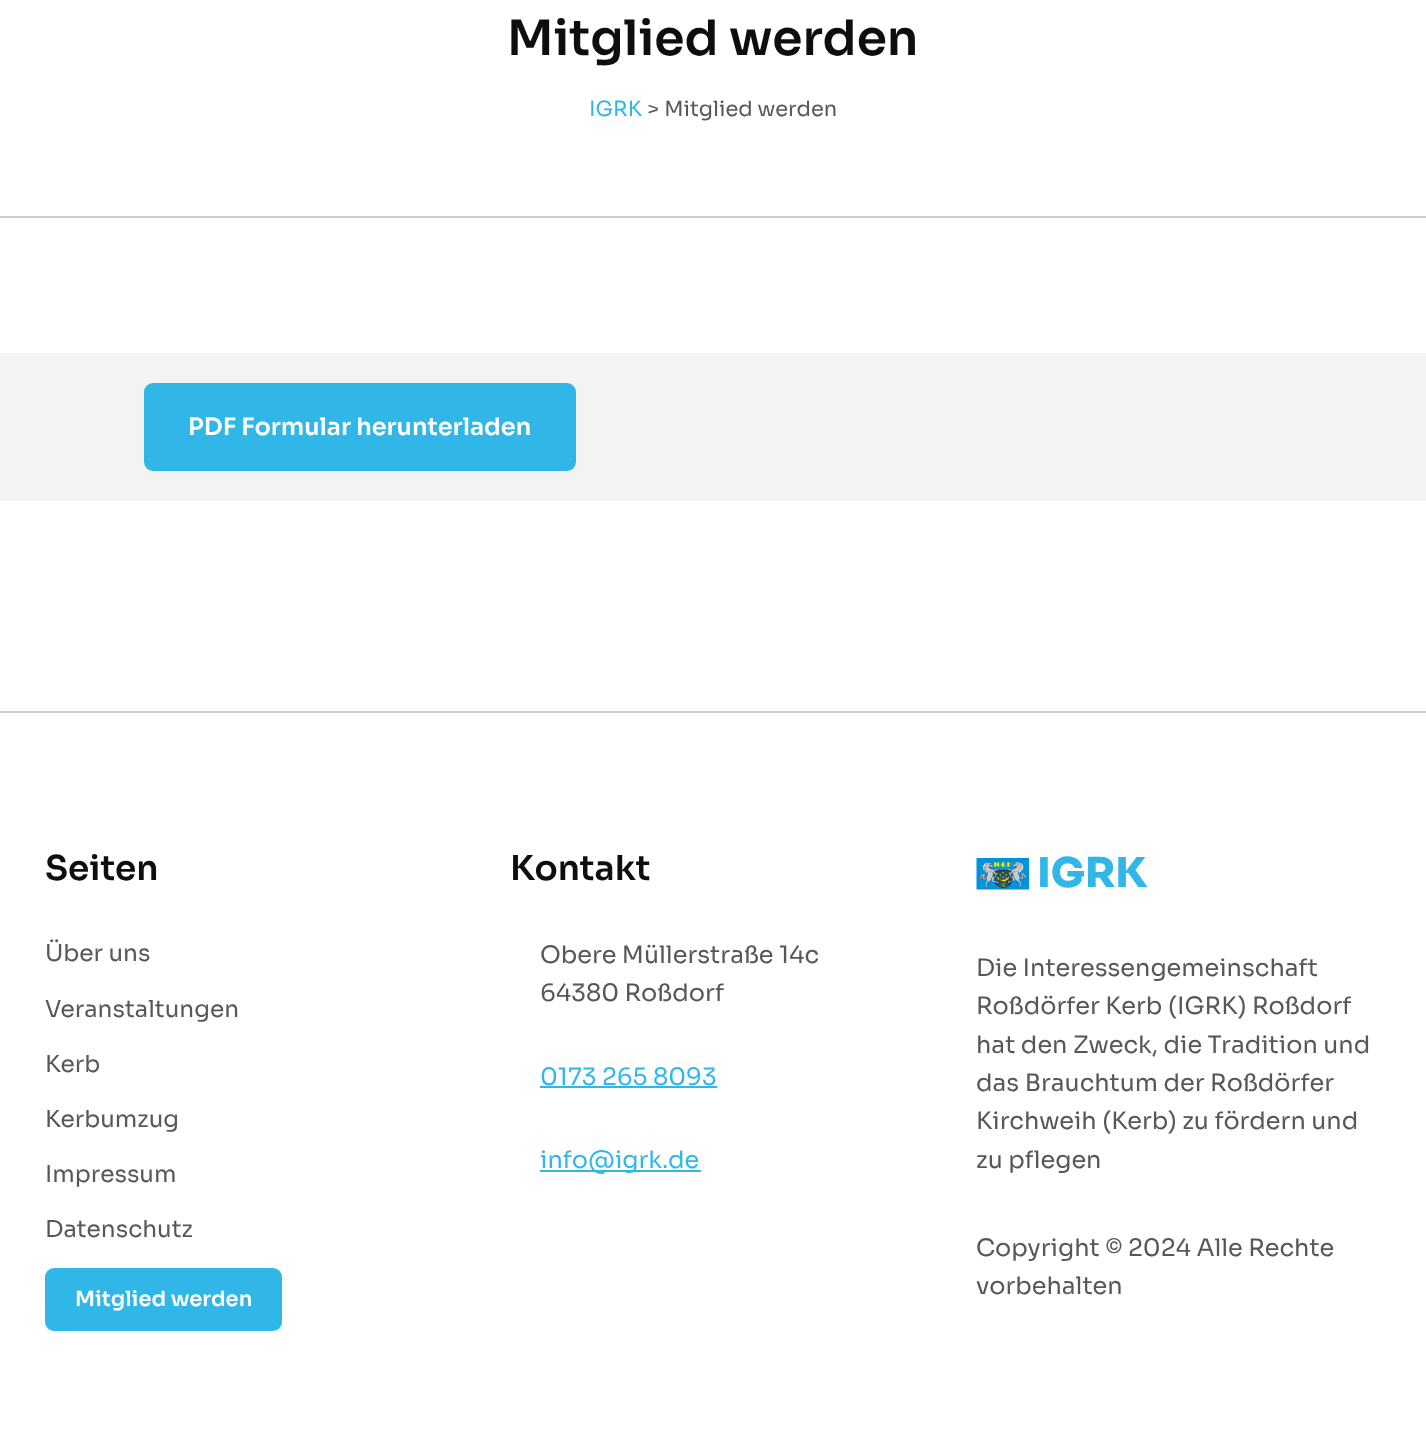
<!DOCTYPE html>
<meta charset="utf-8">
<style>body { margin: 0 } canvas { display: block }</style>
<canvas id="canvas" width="1426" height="1447"></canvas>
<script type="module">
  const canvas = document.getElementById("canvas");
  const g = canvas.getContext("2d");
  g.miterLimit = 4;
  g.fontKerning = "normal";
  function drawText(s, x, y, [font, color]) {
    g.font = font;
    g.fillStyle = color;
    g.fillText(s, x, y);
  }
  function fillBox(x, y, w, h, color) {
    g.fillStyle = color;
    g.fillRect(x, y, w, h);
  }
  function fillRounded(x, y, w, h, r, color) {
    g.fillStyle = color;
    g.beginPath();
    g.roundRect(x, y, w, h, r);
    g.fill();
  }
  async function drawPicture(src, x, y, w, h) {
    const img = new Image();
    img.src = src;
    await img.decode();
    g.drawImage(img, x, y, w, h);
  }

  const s1 = ["600 48.75px Sora", "#0E0E0E"];
  const s2 = ["21px Sora", "#31B7E7"];
  const s3 = ["21px Sora", "#575757"];
  const s4 = ["600 24px Sora", "#FFFFFF"];
  const s5 = ["600 34.25px Sora", "#0E0E0E"];
  const s6 = ["23.25px Sora", "#575757"];
  const s7 = ["600 21px Sora", "#FFFFFF"];
  const s8 = ["24px Sora", "#575757"];
  const s9 = ["24px Sora", "#31B7E7"];
  const s10 = ["800 41px Sora", "#31B7E7"];

  fillBox(0, 0, 1426, 1447, "#FFFFFF");
  fillBox(0, 216, 1426, 2, "#CFCFCF");
  drawText("Mitglied werden", 507, 55, s1);
  drawText("IGRK", 589, 116, s2);
  drawText("> Mitglied werden", 647, 116, s3);
  fillBox(0, 353, 1426, 148, "#F3F3F3");
  fillRounded(144, 383, 432, 88, 9, "#31B7E7");
  drawText("PDF Formular herunterladen", 188, 435, s4);
  fillBox(0, 711, 1426, 2, "#CFCFCF");
  drawText("Seiten", 45, 880, s5);
  drawText("Über uns", 45, 961, s6);
  drawText("Veranstaltungen", 45, 1017, s6);
  drawText("Kerb", 45, 1072, s6);
  drawText("Kerbumzug", 45, 1127, s6);
  drawText("Impressum", 45, 1182, s6);
  drawText("Datenschutz", 45, 1237, s6);
  fillRounded(45, 1268, 237, 63, 9, "#31B7E7");
  drawText("Mitglied werden", 75, 1306, s7);
  drawText("Kontakt", 510, 880, s5);
  drawText("Obere Müllerstraße 14c", 540, 963, s8);
  drawText("64380 Roßdorf", 540, 1001, s8);
  drawText("0173 265 8093", 540, 1085, s9);
  fillBox(540, 1086, 177, 2, "#31B7E7");
  fillBox(540, 1170, 161, 2, "#31B7E7");
  drawText("info@igrk.de", 540, 1168, s9);
  await drawPicture("pic1.png", 976, 858, 53, 32);
  drawText("IGRK", 1037, 887, s10);
  drawText("Die Interessengemeinschaft", 976, 976, s8);
  drawText("Roßdörfer Kerb (IGRK) Roßdorf", 976, 1014, s8);
  drawText("hat den Zweck, die Tradition und", 976, 1053, s8);
  drawText("das Brauchtum der Roßdörfer", 976, 1091, s8);
  drawText("Kirchweih (Kerb) zu fördern und", 976, 1129, s8);
  drawText("zu pflegen", 976, 1168, s8);
  drawText("Copyright © 2024 Alle Rechte", 976, 1256, s8);
  drawText("vorbehalten", 976, 1294, s8);
</script>
